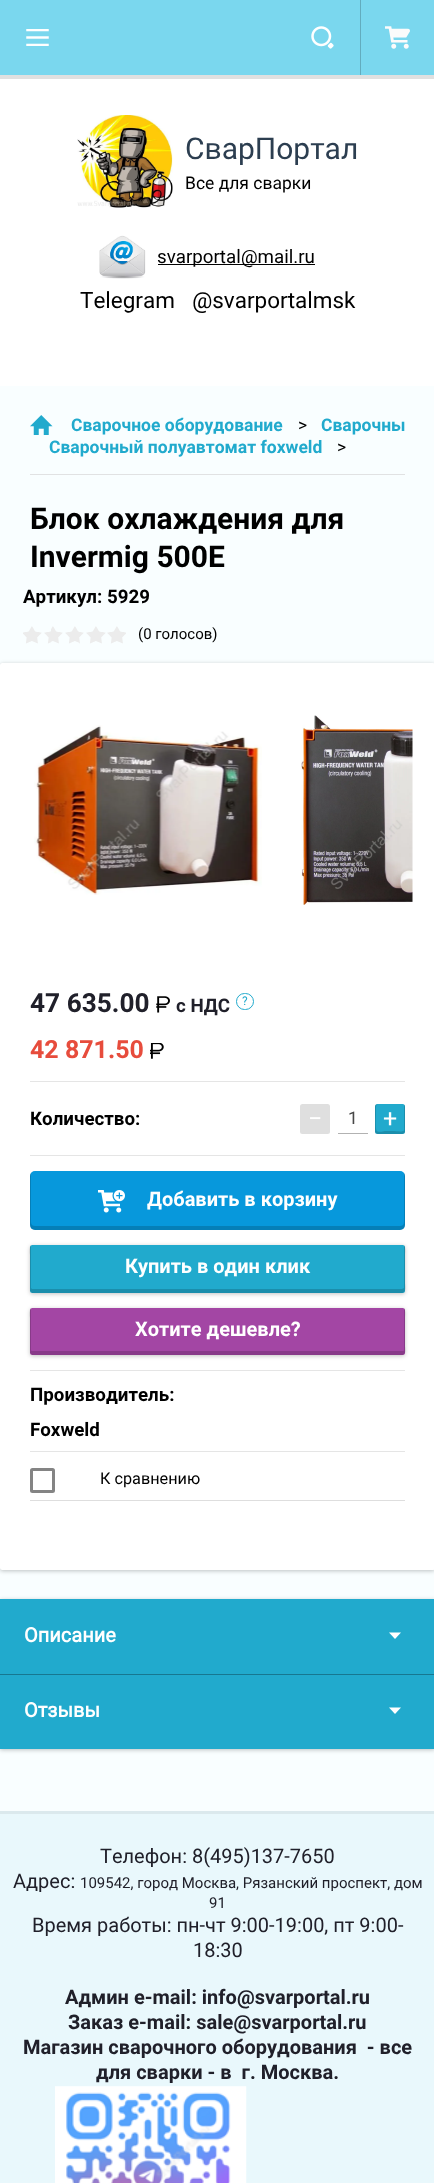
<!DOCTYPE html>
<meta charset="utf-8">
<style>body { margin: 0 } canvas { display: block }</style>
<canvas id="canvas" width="434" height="2183"></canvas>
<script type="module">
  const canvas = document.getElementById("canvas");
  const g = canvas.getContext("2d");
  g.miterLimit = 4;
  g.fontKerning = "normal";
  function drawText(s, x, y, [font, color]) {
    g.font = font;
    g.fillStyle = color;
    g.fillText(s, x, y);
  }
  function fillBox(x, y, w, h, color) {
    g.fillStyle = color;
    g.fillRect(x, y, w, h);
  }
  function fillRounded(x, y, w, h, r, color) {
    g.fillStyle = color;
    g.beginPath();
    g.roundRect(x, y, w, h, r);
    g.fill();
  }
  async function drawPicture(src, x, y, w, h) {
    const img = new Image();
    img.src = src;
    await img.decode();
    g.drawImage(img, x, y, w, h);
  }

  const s1 = ["30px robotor", "#2C3E50"];
  const s2 = ["17.5px robotor", "#000000"];
  const s3 = ["18.75px robotor", "#000000"];
  const s4 = ["22.5px robotor", "#000000"];
  const s5 = ["bold 17.5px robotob", "#21AACD"];
  const s6 = ["bold 30px robotob", "#000000"];
  const s7 = ["bold 18.75px robotob", "#000000"];
  const s8 = ["15px robotor", "#000000"];
  const s9 = ["bold 26.25px robotob", "#20202A"];
  const s10 = ["bold 18.75px robotob", "#20202A"];
  const s11 = ["12px robotor", "#21AACD"];
  const s12 = ["bold 25px robotob", "#E74C3C"];
  const s13 = ["25px robotor", "#FFFFFF"];
  const s14 = ["17.5px robotor", "#484848"];
  const s15 = ["bold 20px robotob", "#FFFFFF"];
  const s16 = ["16.25px robotor", "#000000"];
  const s17 = ["bold 20px robotor", "#FFFFFF"];
  const s18 = ["20px robotor", "#20202A"];
  const s19 = ["15px robotor", "#20202A"];
  const s20 = ["bold 20px robotob", "#20202A"];

  fillBox(0, 0, 434, 2183, "#F9FEFF");
  fillBox(0, 79, 434, 307, "#FFFFFF");
  fillBox(0, 75, 434, 4, "#E0E0E0");
  fillBox(0, 0, 434, 75, "#7AD7EE");
  await drawPicture("pic1.png", 26, 29, 23, 17);
  await drawPicture("pic2.png", 311, 26, 23, 23);
  fillBox(360, 0, 1, 75, "#62ACBE");
  await drawPicture("pic3.png", 385, 26, 25, 23);
  await drawPicture("pic4.png", 77, 115, 96, 93);
  drawText("СварПортал", 185, 159, s1);
  drawText("Все для сварки", 185, 189, s2);
  await drawPicture("pic5.png", 99, 235, 47, 44);
  fillBox(158, 264, 157, 1, "#000000");
  drawText("svarportal@mail.ru", 157, 263, s3);
  drawText("Telegram", 80, 308, s4);
  drawText("@svarportalmsk", 192, 308, s4);
  fillBox(30, 474, 375, 1, "#E1E2E3");
  await drawPicture("pic6.png", 30, 415, 23, 20);
  drawText("Cварочное оборудование", 71, 431, s5);
  drawText(">", 298, 431, s2);
  drawText("Сварочны", 321, 431, s5);
  drawText("Сварочный полуавтомат foxweld", 49, 453, s5);
  drawText(">", 337, 453, s2);
  drawText("Блок охлаждения для", 30, 529, s6);
  drawText("Invermig 500E", 30, 567, s6);
  drawText("Артикул: 5929", 23, 603, s7);
  await drawPicture("pic7.png", 23, 626, 103, 18);
  drawText("(0 голосов)", 138, 639, s8);
  g.fillStyle = "rgba(0, 0, 0, 0.24)";
  g.filter = "blur(2px)";
  g.beginPath();
  g.roundRect(0, 664, 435, 907, 2.5);
  g.fill();
  g.filter = "none";
  fillRounded(0, 663, 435, 907, 2.5, "#FFFFFF");
  await drawPicture("pic8.png", 34, 725, 228, 170);
  await drawPicture("pic9.png", 301, 715, 112, 190);
  drawText("47 635.00", 30, 1012, s9);
  await drawPicture("pic10.png", 156, 996, 14, 17);
  drawText("с НДС", 176, 1012, s10);
  g.beginPath();
  g.roundRect(236.5, 993.5, 17, 16, 8);
  g.strokeStyle = "#21AACD";
  g.stroke();
  drawText("?", 242, 1005, s11);
  drawText("42 871.50", 30, 1058, s12);
  await drawPicture("pic11.png", 150, 1043, 14, 16);
  fillBox(30, 1081, 375, 1, "#E5E5E5");
  fillBox(30, 1155, 375, 1, "#E5E5E5");
  drawText("Количество:", 30, 1125, s7);
  fillRounded(300, 1104, 30, 30, 2.5, "#DFDFDF");
  drawText("−", 308, 1127, s13);
  fillBox(338, 1133, 30, 1, "#B2B2B2");
  drawText("1", 348, 1124, s14);
  fillRounded(375, 1104, 30, 30, 2.5, "#21AACD");
  g.fillStyle = "rgba(0, 0, 0, 0.16)";
  g.beginPath();
  g.moveTo(377.5, 1104);
  g.bezierCurveTo(376, 1104, 375, 1105, 375, 1106.5);
  g.lineTo(375, 1131.5);
  g.bezierCurveTo(375, 1133, 376, 1134, 377.5, 1134);
  g.lineTo(402.5, 1134);
  g.bezierCurveTo(404, 1134, 405, 1133, 405, 1131.5);
  g.lineTo(405, 1106.5);
  g.bezierCurveTo(405, 1105.5, 404.5, 1105, 404, 1104.5);
  g.lineTo(404, 1127);
  g.bezierCurveTo(404, 1128, 404.5, 1130, 403.5, 1131);
  g.bezierCurveTo(402, 1132, 395, 1131, 393, 1131);
  g.lineTo(384.5, 1131);
  g.bezierCurveTo(383, 1131.5, 377.5, 1132.5, 376.5, 1130.5);
  g.bezierCurveTo(375.5, 1128.5, 376, 1117.5, 376, 1114.5);
  g.lineTo(376, 1108.5);
  g.bezierCurveTo(376, 1107.5, 376, 1104, 378, 1104);
  g.closePath();
  g.fill();
  drawText("+", 383, 1127, s13);
  fillRounded(30, 1171, 375, 59, 5, "#0798DC");
  g.fillStyle = "rgba(0, 0, 0, 0.16)";
  g.beginPath();
  g.moveTo(31, 1173);
  g.bezierCurveTo(30, 1174, 30, 1175, 30, 1176);
  g.lineTo(30, 1225);
  g.bezierCurveTo(30, 1228, 32, 1230, 35, 1230);
  g.lineTo(400, 1230);
  g.bezierCurveTo(403, 1230, 405, 1228, 405, 1225);
  g.lineTo(405, 1176);
  g.bezierCurveTo(405, 1175, 405, 1174, 404, 1173);
  g.lineTo(404, 1222);
  g.bezierCurveTo(404, 1225, 402, 1226, 400, 1226);
  g.lineTo(35, 1226);
  g.bezierCurveTo(33, 1226, 31, 1225, 31, 1222);
  g.closePath();
  g.fill();
  await drawPicture("pic12.png", 98, 1190, 27, 23);
  drawText("Добавить в корзину", 147, 1206, s15);
  g.fillStyle = "rgba(0, 0, 0, 0.24)";
  g.filter = "blur(2px)";
  g.beginPath();
  g.roundRect(30, 1246, 375, 48, 2.5);
  g.fill();
  g.filter = "none";
  fillRounded(30, 1245, 375, 48, 2.5, "#21AACD");
  g.fillStyle = "rgba(0, 0, 0, 0.16)";
  g.beginPath();
  g.moveTo(31, 1245);
  g.bezierCurveTo(29, 1247, 30, 1254, 30, 1255);
  g.lineTo(30, 1291);
  g.lineTo(32, 1293);
  g.lineTo(402, 1293);
  g.bezierCurveTo(407, 1293, 405, 1284, 405, 1283);
  g.lineTo(405, 1255);
  g.bezierCurveTo(405, 1254, 406, 1247, 404, 1245);
  g.lineTo(404, 1288);
  g.lineTo(402, 1289);
  g.lineTo(32, 1289);
  g.lineTo(31, 1288);
  g.closePath();
  g.fill();
  drawText("Купить в один клик", 125, 1273, s15);
  g.fillStyle = "rgba(0, 0, 0, 0.24)";
  g.filter = "blur(2px)";
  g.beginPath();
  g.roundRect(30, 1309, 375, 47, 2.5);
  g.fill();
  g.filter = "none";
  fillRounded(30, 1308, 375, 47, 2.5, "#A346A4");
  g.fillStyle = "rgba(0, 0, 0, 0.16)";
  g.beginPath();
  g.moveTo(31, 1308);
  g.bezierCurveTo(29, 1310, 30, 1317, 30, 1318);
  g.lineTo(30, 1353);
  g.lineTo(32, 1355);
  g.lineTo(402, 1355);
  g.bezierCurveTo(407, 1355, 405, 1347, 405, 1346);
  g.lineTo(405, 1318);
  g.bezierCurveTo(405, 1317, 406, 1310, 404, 1308);
  g.lineTo(404, 1350);
  g.bezierCurveTo(404, 1351, 403, 1351, 402, 1351);
  g.lineTo(32, 1351);
  g.bezierCurveTo(32, 1351, 31, 1351, 31, 1350);
  g.closePath();
  g.fill();
  drawText("Хотите дешевле?", 135, 1336, s15);
  fillBox(30, 1370, 375, 1, "#E5E5E5");
  fillBox(30, 1451, 375, 1, "#E5E5E5");
  drawText("Производитель:", 30, 1401, s7);
  drawText("Foxweld", 30, 1436, s7);
  fillBox(30, 1500, 375, 1, "#DEDEDE");
  g.beginPath();
  g.roundRect(31.5, 1469.5, 22, 22, 1);
  g.strokeStyle = "#848484";
  g.lineWidth = 3;
  g.stroke();
  drawText("К сравнению", 100, 1484, s16);
  g.fillStyle = "rgba(0, 0, 0, 0.24)";
  g.filter = "blur(2px)";
  g.beginPath();
  g.rect(0, 1600, 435, 150);
  g.fill();
  g.filter = "none";
  fillBox(0, 1599, 434, 150, "#21AACD");
  drawText("Описание", 24, 1642, s17);
  g.beginPath();
  g.moveTo(389, 1632.5);
  g.lineTo(401, 1632.5);
  g.lineTo(395, 1639);
  g.closePath();
  g.fill();
  fillBox(0, 1674, 434, 1, "#177790");
  drawText("Отзывы", 24, 1717, s17);
  g.beginPath();
  g.moveTo(389, 1707.5);
  g.lineTo(401, 1707.5);
  g.lineTo(395, 1714);
  g.closePath();
  g.fill();
  fillBox(0, 1814, 434, 369, "#E9F8FC");
  fillBox(0, 1811, 434, 3, "#DBE9ED");
  drawText("Телефон: 8(495)137-7650", 100, 1863, s18);
  drawText("Адрес:", 13, 1888, s18);
  drawText("109542, город Москва, Рязанский проспект, дом", 80, 1888, s19);
  drawText("91", 209, 1908, s19);
  drawText("Время работы: пн-чт 9:00-19:00, пт 9:00-", 32, 1932, s18);
  drawText("18:30", 193, 1957, s18);
  drawText("Админ е-mail: info@svarportal.ru", 65, 2004, s20);
  drawText("Заказ е-mail: sale@svarportal.ru", 68, 2029, s20);
  drawText("Магазин сварочного оборудования  - все", 23, 2054, s20);
  drawText("для сварки - в  г. Москва.", 96, 2079, s20);
  await drawPicture("pic13.png", 55, 2086, 192, 97);
</script>
